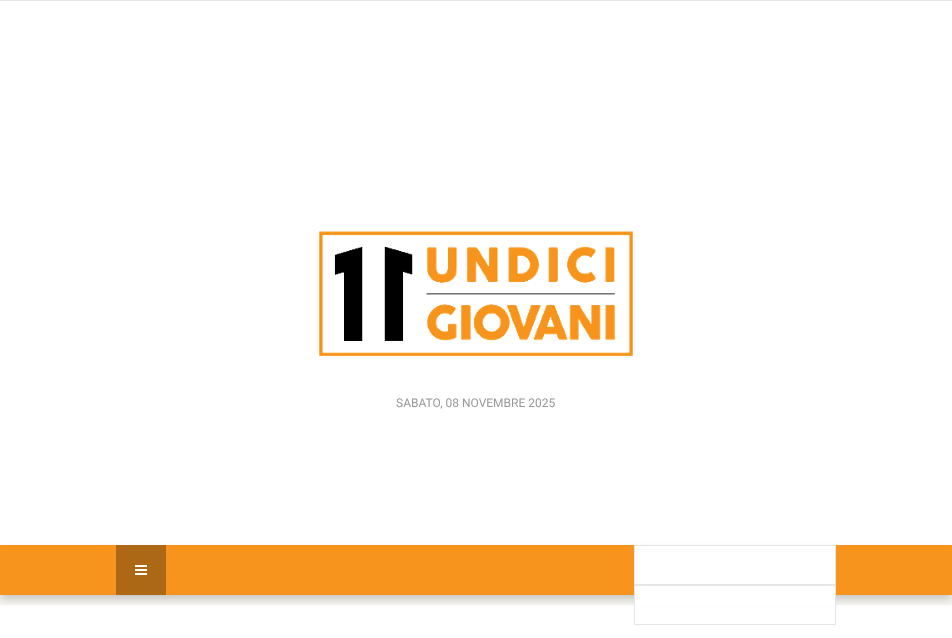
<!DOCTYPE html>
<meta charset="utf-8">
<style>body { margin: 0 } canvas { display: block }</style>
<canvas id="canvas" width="952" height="638"></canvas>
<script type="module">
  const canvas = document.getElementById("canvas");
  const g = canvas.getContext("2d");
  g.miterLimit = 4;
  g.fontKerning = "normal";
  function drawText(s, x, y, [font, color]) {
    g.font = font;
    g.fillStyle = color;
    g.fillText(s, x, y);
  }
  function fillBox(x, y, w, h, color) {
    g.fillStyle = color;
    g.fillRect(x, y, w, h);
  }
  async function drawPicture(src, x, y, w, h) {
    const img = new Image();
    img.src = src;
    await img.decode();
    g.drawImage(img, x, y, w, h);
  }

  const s1 = ["12px Roboto", "#999999"];

  fillBox(0, 0, 952, 638, "#FFFFFF");
  fillBox(0, 0, 952, 1, "#E5E5E5");
  await drawPicture("pic1.png", 319, 231, 314, 125);
  drawText("SABATO, 08 NOVEMBRE 2025", 396, 407, s1);
  fillBox(0, 595, 952, 10, "#F6F5F0");
  g.fillStyle = "rgba(0, 0, 0, 0.2)";
  g.filter = "blur(4px)";
  g.beginPath();
  g.rect(1, 551, 950, 48);
  g.fill();
  g.filter = "none";
  fillBox(0, 545, 952, 50, "#F7941E");
  fillBox(116, 545, 50, 50, "#AD6815");
  await drawPicture("pic2.png", 135, 565, 12, 10);
  g.fillStyle = "#FFFFFF";
  g.beginPath();
  g.rect(634.5, 545.5, 201, 39);
  g.fill();
  g.strokeStyle = "#E5E5E5";
  g.stroke();
  fillBox(635, 586, 200, 20, "#FFFFFF");
  g.strokeRect(634.5, 585.5, 201, 39);
</script>
